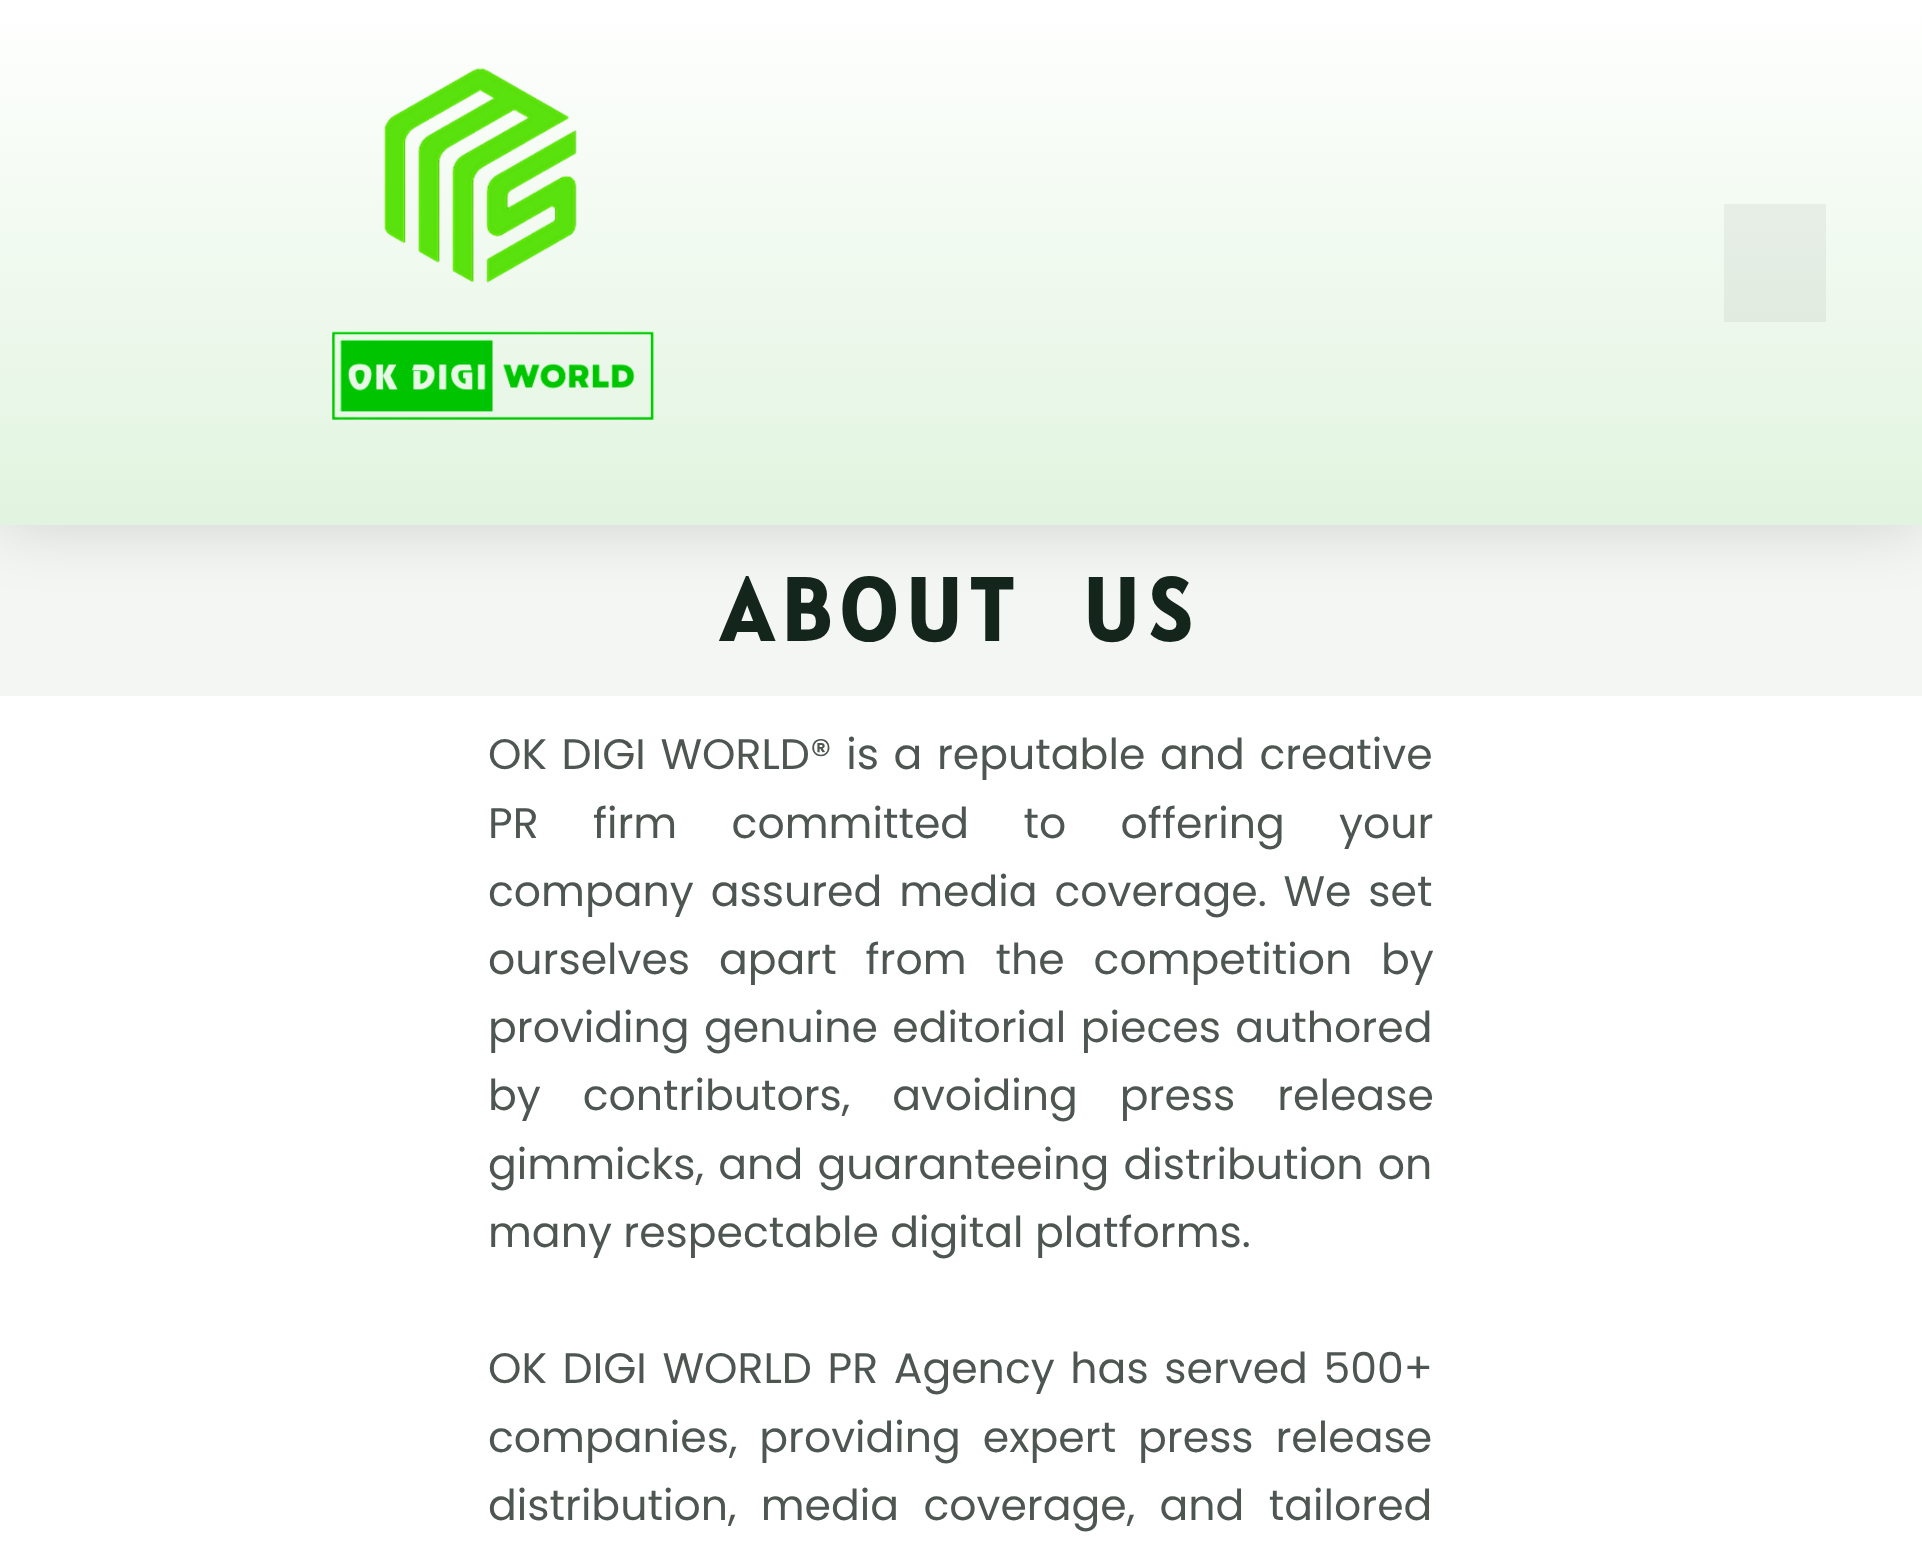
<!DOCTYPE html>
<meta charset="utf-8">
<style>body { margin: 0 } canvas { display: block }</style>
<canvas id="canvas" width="1922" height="1551"></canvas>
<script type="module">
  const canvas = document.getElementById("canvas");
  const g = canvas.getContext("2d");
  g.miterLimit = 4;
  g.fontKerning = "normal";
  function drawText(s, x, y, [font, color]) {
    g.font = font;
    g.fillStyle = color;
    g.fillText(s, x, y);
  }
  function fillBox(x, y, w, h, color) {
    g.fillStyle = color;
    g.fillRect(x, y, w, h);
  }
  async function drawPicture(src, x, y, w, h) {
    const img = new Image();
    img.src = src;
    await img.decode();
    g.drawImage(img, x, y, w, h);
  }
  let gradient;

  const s1 = ["bold 88px Alatsi", "#14261C"];
  const s2 = ["42.6px Poppins", "#4E5652"];

  fillBox(0, 0, 1922, 1551, "#F4F6F4");
  g.fillStyle = "rgba(0, 0, 0, 0.15)";
  g.filter = "blur(33px)";
  g.beginPath();
  g.rect(0, 0, 1922, 525);
  g.fill();
  g.filter = "none";
  gradient = g.createLinearGradient(961, 0, 961, 525);
  gradient.addColorStop(0, "#FFFFFF");
  gradient.addColorStop(1, "#E1F4DF");
  g.fillStyle = gradient;
  g.fillRect(0, 0, 1922, 525);
  gradient = g.createLinearGradient(961, 0, 961, 525);
  gradient.addColorStop(0, "#F2F2F2");
  gradient.addColorStop(1, "#D6E8D4");
  g.fillStyle = gradient;
  g.fillRect(1724, 204, 102, 118);
  await drawPicture("pic1.png", 332, 68, 322, 352);
  g.letterSpacing = "9px";
  g.wordSpacing = "36px";
  drawText("ABOUT US", 721, 641, s1);
  fillBox(0, 696, 1922, 855, "#FFFFFF");
  g.letterSpacing = "0px";
  g.wordSpacing = "3.25px";
  drawText("OK DIGI WORLD® is a reputable and creative", 488, 769, s2);
  g.wordSpacing = "43px";
  drawText("PR firm committed to offering your", 488, 838, s2);
  g.wordSpacing = "5.5px";
  drawText("company assured media coverage. We set", 488, 906, s2);
  g.wordSpacing = "17.5px";
  drawText("ourselves apart from the competition by", 488, 974, s2);
  g.wordSpacing = "3px";
  drawText("providing genuine editorial pieces authored", 488, 1042, s2);
  g.wordSpacing = "30.5px";
  drawText("by contributors, avoiding press release", 488, 1110, s2);
  g.wordSpacing = "3px";
  drawText("gimmicks, and guaranteeing distribution on", 488, 1179, s2);
  g.wordSpacing = "0px";
  drawText("many respectable digital platforms.", 488, 1247, s2);
  g.wordSpacing = "4.25px";
  drawText("OK DIGI WORLD PR Agency has served 500+", 488, 1383, s2);
  g.wordSpacing = "10.5px";
  drawText("companies, providing expert press release", 488, 1452, s2);
  g.wordSpacing = "13px";
  drawText("distribution, media coverage, and tailored", 488, 1520, s2);
</script>
